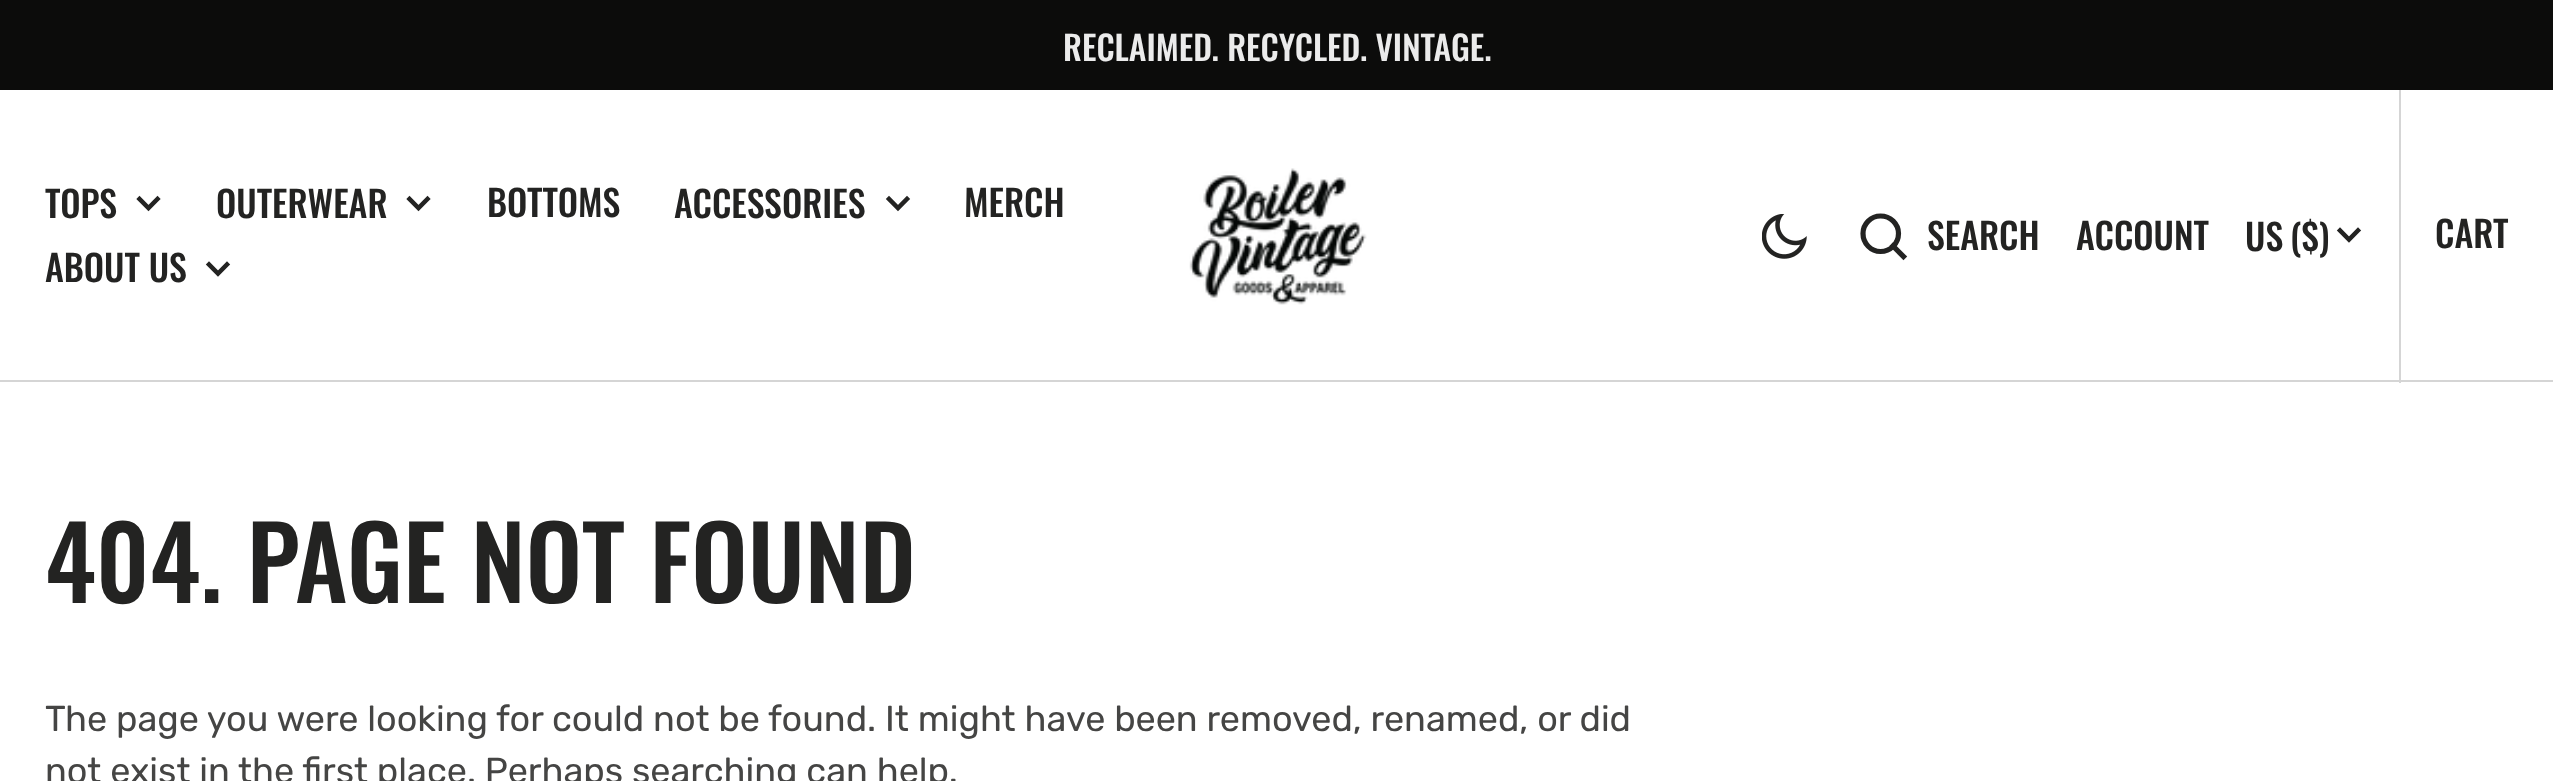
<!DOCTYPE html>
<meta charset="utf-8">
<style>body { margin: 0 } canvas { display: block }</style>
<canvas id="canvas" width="2553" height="781"></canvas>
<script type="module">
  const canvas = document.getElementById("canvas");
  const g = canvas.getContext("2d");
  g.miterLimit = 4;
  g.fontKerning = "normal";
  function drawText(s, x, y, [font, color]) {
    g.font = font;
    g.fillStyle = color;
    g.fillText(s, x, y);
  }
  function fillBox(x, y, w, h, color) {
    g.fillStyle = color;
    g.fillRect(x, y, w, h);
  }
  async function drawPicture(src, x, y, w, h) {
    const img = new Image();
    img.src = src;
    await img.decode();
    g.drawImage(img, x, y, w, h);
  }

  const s1 = ["500 33.75px Oswald", "#EBEBEB"];
  const s2 = ["500 36px Oswald", "#232322"];
  const s3 = ["500 100.75px Oswald", "#232322"];
  const s4 = ["36px Rubik", "#454544"];

  fillBox(0, 0, 2553, 781, "#FFFFFF");
  fillBox(0, 0, 2553, 90, "#0C0C0B");
  drawText("RECLAIMED. RECYCLED. VINTAGE.", 1063, 61, s1);
  fillBox(0, 380, 2553, 2, "#D5D5D5");
  drawText("TOPS", 45, 218, s2);
  g.beginPath();
  g.moveTo(157.5, 199);
  g.lineTo(148.5, 208);
  g.lineTo(139.5, 199);
  g.strokeStyle = "#232322";
  g.lineWidth = 4.5;
  g.lineCap = "square";
  g.stroke();
  drawText("OUTERWEAR", 216, 218, s2);
  g.beginPath();
  g.moveTo(427.5, 199);
  g.lineTo(418.5, 208);
  g.lineTo(409.5, 199);
  g.stroke();
  drawText("BOTTOMS", 487, 217, s2);
  drawText("ACCESSORIES", 674, 218, s2);
  g.beginPath();
  g.moveTo(907, 199);
  g.lineTo(898, 208);
  g.lineTo(889, 199);
  g.stroke();
  drawText("MERCH", 964, 217, s2);
  drawText("ABOUT US", 45, 282, s2);
  g.beginPath();
  g.moveTo(227, 264.5);
  g.lineTo(218, 273.5);
  g.lineTo(209, 264.5);
  g.stroke();
  await drawPicture("pic1.png", 1189, 168, 178, 137);
  await drawPicture("pic2.png", 1762, 214, 45, 45);
  g.beginPath();
  g.moveTo(1880.5, 251.5);
  g.bezierCurveTo(1890.5, 251.5, 1898.5, 243.5, 1898.5, 233.5);
  g.bezierCurveTo(1898.5, 224, 1890.5, 216, 1880.5, 216);
  g.bezierCurveTo(1871, 216, 1863, 224, 1863, 233.5);
  g.bezierCurveTo(1863, 243.5, 1871, 251.5, 1880.5, 251.5);
  g.closePath();
  g.lineWidth = 5.2;
  g.lineCap = "round";
  g.lineJoin = "round";
  g.stroke();
  g.beginPath();
  g.moveTo(1893, 246);
  g.lineTo(1903.5, 256.5);
  g.lineCap = "square";
  g.stroke();
  drawText("SEARCH", 1927, 250, s2);
  drawText("ACCOUNT", 2076, 250, s2);
  drawText("US", 2245, 251, s2);
  drawText("($)", 2290, 251, s2);
  g.beginPath();
  g.moveTo(2358, 230.5);
  g.lineTo(2349, 239.5);
  g.lineTo(2340, 230.5);
  g.lineWidth = 4.5;
  g.lineJoin = "miter";
  g.stroke();
  fillBox(2399, 90, 2, 293, "#D5D5D5");
  drawText("CART", 2435, 248, s2);
  drawText("404. PAGE NOT FOUND", 45, 603, s3);
  drawText("The page you were looking for could not be found. It might have been removed, renamed, or did", 45, 731, s4);
  drawText("not exist in the first place. Perhaps searching can help.", 45, 783, s4);
</script>
